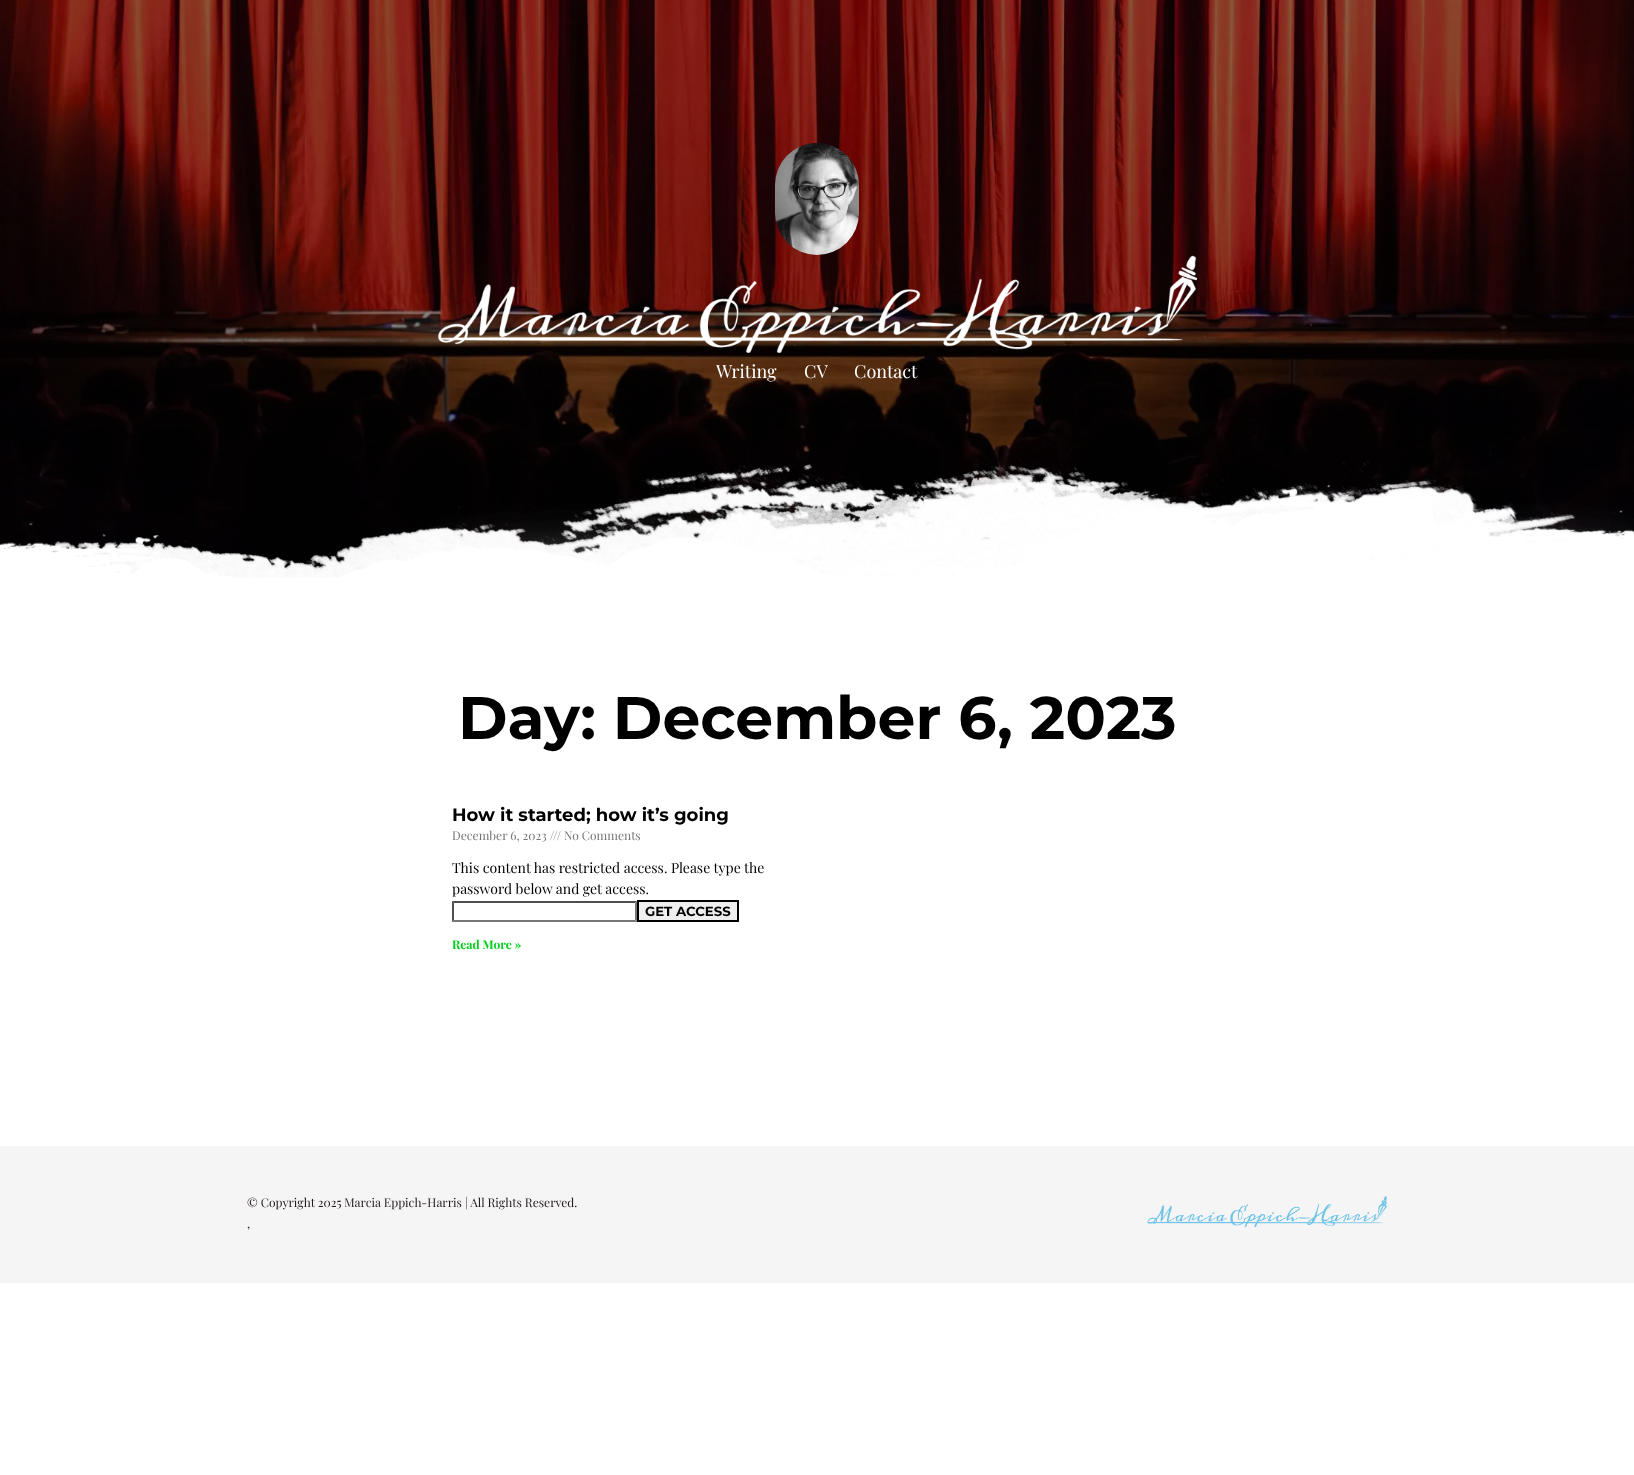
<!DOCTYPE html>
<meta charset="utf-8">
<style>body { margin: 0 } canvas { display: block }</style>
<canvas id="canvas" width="1634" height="1475"></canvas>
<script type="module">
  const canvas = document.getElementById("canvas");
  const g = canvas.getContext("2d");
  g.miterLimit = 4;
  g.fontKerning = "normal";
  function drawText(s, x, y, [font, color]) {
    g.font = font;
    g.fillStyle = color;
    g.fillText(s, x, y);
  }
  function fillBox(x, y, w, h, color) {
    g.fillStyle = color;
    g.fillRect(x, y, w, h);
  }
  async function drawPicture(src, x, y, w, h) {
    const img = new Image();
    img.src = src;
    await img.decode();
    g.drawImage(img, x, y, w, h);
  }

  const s1 = ["18px Playfair Display", "#FFFFFF"];
  const s2 = ["100 60px Montserrat", "#000000"];
  const s3 = ["100 18px Montserrat", "#000000"];
  const s4 = ["12px Playfair Display", "#757575"];
  const s5 = ["14px Playfair Display", "#000000"];
  const s6 = ["100 13.25px Montserrat", "#000000"];
  const s7 = ["bold 12px Playfair Display", "#00CE1B"];
  const s8 = ["12px Playfair Display", "#211B1B"];

  fillBox(0, 0, 1634, 1475, "#FFFFFF");
  await drawPicture("pic1.png", 0, 0, 1634, 578);
  await drawPicture("pic2.png", 775, 143, 84, 112);
  await drawPicture("pic3.png", 438, 255, 759, 98);
  drawText("Writing", 716, 378, s1);
  drawText("CV", 804, 378, s1);
  drawText("Contact", 854, 378, s1);
  await drawPicture("pic4.png", 0, 438, 1634, 140);
  drawText("Day: December 6, 2023", 458, 739, s2);
  drawText("How it started; how it’s going", 452, 821, s3);
  drawText("December 6, 2023 /// No Comments", 452, 840, s4);
  drawText("This content has restricted access. Please type the", 452, 873, s5);
  drawText("password below and get access.", 452, 894, s5);
  g.fillStyle = "#4F4F4F";
  g.beginPath();
  g.moveTo(452, 901);
  g.lineTo(637, 901);
  g.lineTo(635, 903);
  g.lineTo(454, 903);
  g.closePath();
  g.fill();
  g.fillStyle = "#767676";
  g.beginPath();
  g.moveTo(637, 901);
  g.lineTo(637, 922);
  g.lineTo(635, 920);
  g.lineTo(635, 903);
  g.closePath();
  g.fill();
  g.beginPath();
  g.moveTo(637, 922);
  g.lineTo(452, 922);
  g.lineTo(454, 920);
  g.lineTo(635, 920);
  g.closePath();
  g.fill();
  g.fillStyle = "#4F4F4F";
  g.beginPath();
  g.moveTo(452, 922);
  g.lineTo(452, 901);
  g.lineTo(454, 903);
  g.lineTo(454, 920);
  g.closePath();
  g.fill();
  g.fillStyle = "#EFEFEF";
  g.beginPath();
  g.rect(638, 901, 100, 20);
  g.fill();
  g.strokeStyle = "#000000";
  g.lineWidth = 2;
  g.stroke();
  drawText("GET ACCESS", 645, 916, s6);
  drawText("Read More »", 452, 949, s7);
  fillBox(0, 1146, 1634, 137, "#F6F5F5");
  drawText("© Copyright 2025 Marcia Eppich-Harris | All Rights Reserved.", 247, 1207, s8);
  drawText(",", 247, 1228, s8);
  await drawPicture("pic5.png", 1147, 1196, 240, 32);
</script>
